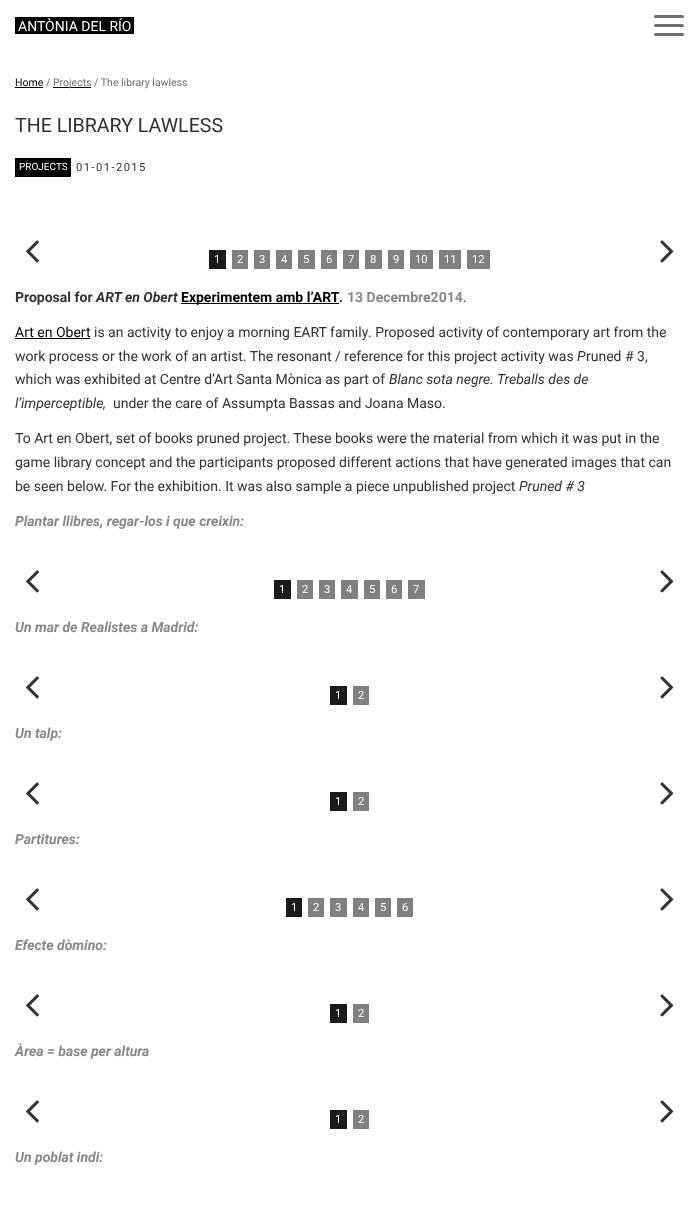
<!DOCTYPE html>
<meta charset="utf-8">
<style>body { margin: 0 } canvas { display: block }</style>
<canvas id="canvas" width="699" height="1231"></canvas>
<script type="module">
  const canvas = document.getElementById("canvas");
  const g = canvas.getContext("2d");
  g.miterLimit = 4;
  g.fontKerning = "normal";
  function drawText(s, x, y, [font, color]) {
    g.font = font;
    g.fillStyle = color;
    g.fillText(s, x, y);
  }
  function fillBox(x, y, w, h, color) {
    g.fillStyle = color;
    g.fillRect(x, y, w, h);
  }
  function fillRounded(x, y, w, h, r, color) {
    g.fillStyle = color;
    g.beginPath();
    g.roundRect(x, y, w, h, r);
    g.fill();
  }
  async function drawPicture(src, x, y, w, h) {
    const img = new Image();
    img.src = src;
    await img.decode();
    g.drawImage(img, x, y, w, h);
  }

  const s1 = ["14px Roboto", "#FFFFFF"];
  const s2 = ["10.5px Roboto", "#000000"];
  const s3 = ["10.5px Roboto", "#6F6F6E"];
  const s4 = ["19.6px Roboto", "#323232"];
  const s5 = ["10px Roboto", "#FFFFFF"];
  const s6 = ["11.25px Roboto", "#323232"];
  const s7 = ["11.25px Roboto", "#FFFFFF"];
  const s8 = ["bold 14px Roboto", "#323232"];
  const s9 = ["italic bold 14px Roboto", "#323232"];
  const s10 = ["bold 14px Roboto", "#000000"];
  const s11 = ["bold 14px Roboto", "#888888"];
  const s12 = ["14px Roboto", "#323232"];
  const s13 = ["14px Roboto", "#000000"];
  const s14 = ["italic 14px Roboto", "#323232"];
  const s15 = ["italic bold 14px Roboto", "#888888"];

  fillBox(0, 0, 699, 1231, "#FFFFFF");
  fillBox(15, 17, 119, 17, "#000000");
  drawText("ANTÒNIA DEL RÍO", 18, 31, s1);
  fillRounded(654, 15, 30, 3, 1.5, "#6F6F6E");
  fillRounded(654, 24, 30, 3, 1.5, "#6F6F6E");
  fillRounded(654, 33, 30, 3, 1.5, "#6F6F6E");
  drawText("Home", 15, 86, s2);
  fillBox(15, 87, 28, 1, "#000000");
  drawText("/", 46, 86, s3);
  fillBox(53, 87, 38, 1, "#000000");
  drawText("Projects / The library lawless", 53, 86, s3);
  drawText("THE LIBRARY LAWLESS", 15, 132, s4);
  fillBox(15, 158, 56, 19, "#000000");
  drawText("PROJECTS", 19, 170, s5);
  g.letterSpacing = "1.4px";
  drawText("01-01-2015", 76, 171, s6);
  await drawPicture("pic1.png", 26, 240, 13, 23);
  await drawPicture("pic2.png", 660, 240, 14, 23);
  fillBox(209, 250, 17, 19, "#1A1A1A");
  g.letterSpacing = "0px";
  drawText("1", 214, 263, s7);
  fillBox(232, 250, 16, 19, "#808080");
  drawText("2", 237, 263, s7);
  fillBox(254, 250, 16, 19, "#808080");
  drawText("3", 259, 263, s7);
  fillBox(276, 250, 16, 19, "#808080");
  drawText("4", 281, 263, s7);
  fillBox(298, 250, 17, 19, "#808080");
  drawText("5", 303, 263, s7);
  fillBox(321, 250, 16, 19, "#808080");
  drawText("6", 326, 263, s7);
  fillBox(343, 250, 16, 19, "#808080");
  drawText("7", 348, 263, s7);
  fillBox(365, 250, 17, 19, "#808080");
  drawText("8", 370, 263, s7);
  fillBox(388, 250, 16, 19, "#808080");
  drawText("9", 393, 263, s7);
  fillBox(410, 250, 23, 19, "#808080");
  drawText("10", 415, 263, s7);
  fillBox(439, 250, 22, 19, "#808080");
  drawText("11", 444, 263, s7);
  fillBox(467, 250, 23, 19, "#808080");
  drawText("12", 472, 263, s7);
  drawText("Proposal for", 15, 302, s8);
  drawText("ART en Obert", 96, 302, s9);
  fillBox(181, 303, 158, 1, "#000000");
  drawText("Experimentem amb l’ART", 181, 302, s10);
  drawText(".", 339, 302, s8);
  drawText("13 Decembre2014", 347, 302, s11);
  drawText(".", 463, 302, s12);
  drawText("Art en Obert", 15, 337, s13);
  fillBox(15, 338, 75, 1, "#000000");
  drawText("is an activity to enjoy a morning EART family", 94, 337, s12);
  drawText(". Proposed activity of contemporary art from the", 368, 337, s12);
  drawText("work process or the work of an artist. The resonant / reference for this project activity was", 15, 361, s12);
  drawText("P", 577, 361, s14);
  drawText("runed # 3,", 586, 361, s12);
  drawText("which was exhibited at Centre d’Art Santa Mònica as part of", 15, 384, s12);
  drawText("Blanc sota negre. Treballs des de", 389, 384, s14);
  drawText("l’imperceptible,", 15, 408, s14);
  drawText("under the care of Assumpta Bassas and Joana Maso.", 113, 408, s12);
  drawText("To Art en Obert, set of books pruned project. These books were the material from which it was put in the", 15, 443, s12);
  drawText("game library concept and the participants proposed different actions that have generated images that can", 15, 467, s12);
  drawText("be seen below. For the exhibition. It was also sample a piece unpublished project", 15, 491, s12);
  drawText("Pruned # 3", 519, 491, s14);
  drawText("Plantar llibres, regar-los i que creixin:", 15, 526, s15);
  await drawPicture("pic1.png", 26, 570, 13, 23);
  await drawPicture("pic2.png", 660, 570, 14, 23);
  fillBox(274, 580, 17, 19, "#1A1A1A");
  drawText("1", 279, 593, s7);
  fillBox(297, 580, 16, 19, "#808080");
  drawText("2", 302, 593, s7);
  fillBox(319, 580, 16, 19, "#808080");
  drawText("3", 324, 593, s7);
  fillBox(341, 580, 17, 19, "#808080");
  drawText("4", 346, 593, s7);
  fillBox(364, 580, 16, 19, "#808080");
  drawText("5", 369, 593, s7);
  fillBox(386, 580, 16, 19, "#808080");
  drawText("6", 391, 593, s7);
  fillBox(408, 580, 17, 19, "#808080");
  drawText("7", 413, 593, s7);
  drawText("Un mar de Realistes a Madrid:", 15, 632, s15);
  await drawPicture("pic1.png", 26, 676, 13, 23);
  await drawPicture("pic2.png", 660, 676, 14, 23);
  fillBox(330, 686, 17, 19, "#1A1A1A");
  drawText("1", 335, 699, s7);
  fillBox(353, 686, 16, 19, "#808080");
  drawText("2", 358, 699, s7);
  drawText("Un talp:", 15, 738, s15);
  await drawPicture("pic1.png", 26, 782, 13, 23);
  await drawPicture("pic2.png", 660, 782, 14, 23);
  fillBox(330, 792, 17, 19, "#1A1A1A");
  drawText("1", 335, 805, s7);
  fillBox(353, 792, 16, 19, "#808080");
  drawText("2", 358, 805, s7);
  drawText("Partitures:", 15, 844, s15);
  await drawPicture("pic1.png", 26, 888, 13, 23);
  await drawPicture("pic2.png", 660, 888, 14, 23);
  fillBox(286, 898, 16, 19, "#1A1A1A");
  drawText("1", 291, 911, s7);
  fillBox(308, 898, 16, 19, "#808080");
  drawText("2", 313, 911, s7);
  fillBox(330, 898, 17, 19, "#808080");
  drawText("3", 335, 911, s7);
  fillBox(353, 898, 16, 19, "#808080");
  drawText("4", 358, 911, s7);
  fillBox(375, 898, 16, 19, "#808080");
  drawText("5", 380, 911, s7);
  fillBox(397, 898, 16, 19, "#808080");
  drawText("6", 402, 911, s7);
  drawText("Efecte dòmino:", 15, 950, s15);
  await drawPicture("pic1.png", 26, 994, 13, 23);
  await drawPicture("pic2.png", 660, 994, 14, 23);
  fillBox(330, 1004, 17, 19, "#1A1A1A");
  drawText("1", 335, 1017, s7);
  fillBox(353, 1004, 16, 19, "#808080");
  drawText("2", 358, 1017, s7);
  drawText("Àrea = base per altura", 15, 1056, s15);
  await drawPicture("pic1.png", 26, 1100, 13, 23);
  await drawPicture("pic2.png", 660, 1100, 14, 23);
  fillBox(330, 1110, 17, 19, "#1A1A1A");
  drawText("1", 335, 1123, s7);
  fillBox(353, 1110, 16, 19, "#808080");
  drawText("2", 358, 1123, s7);
  drawText("Un poblat indi:", 15, 1162, s15);
</script>
